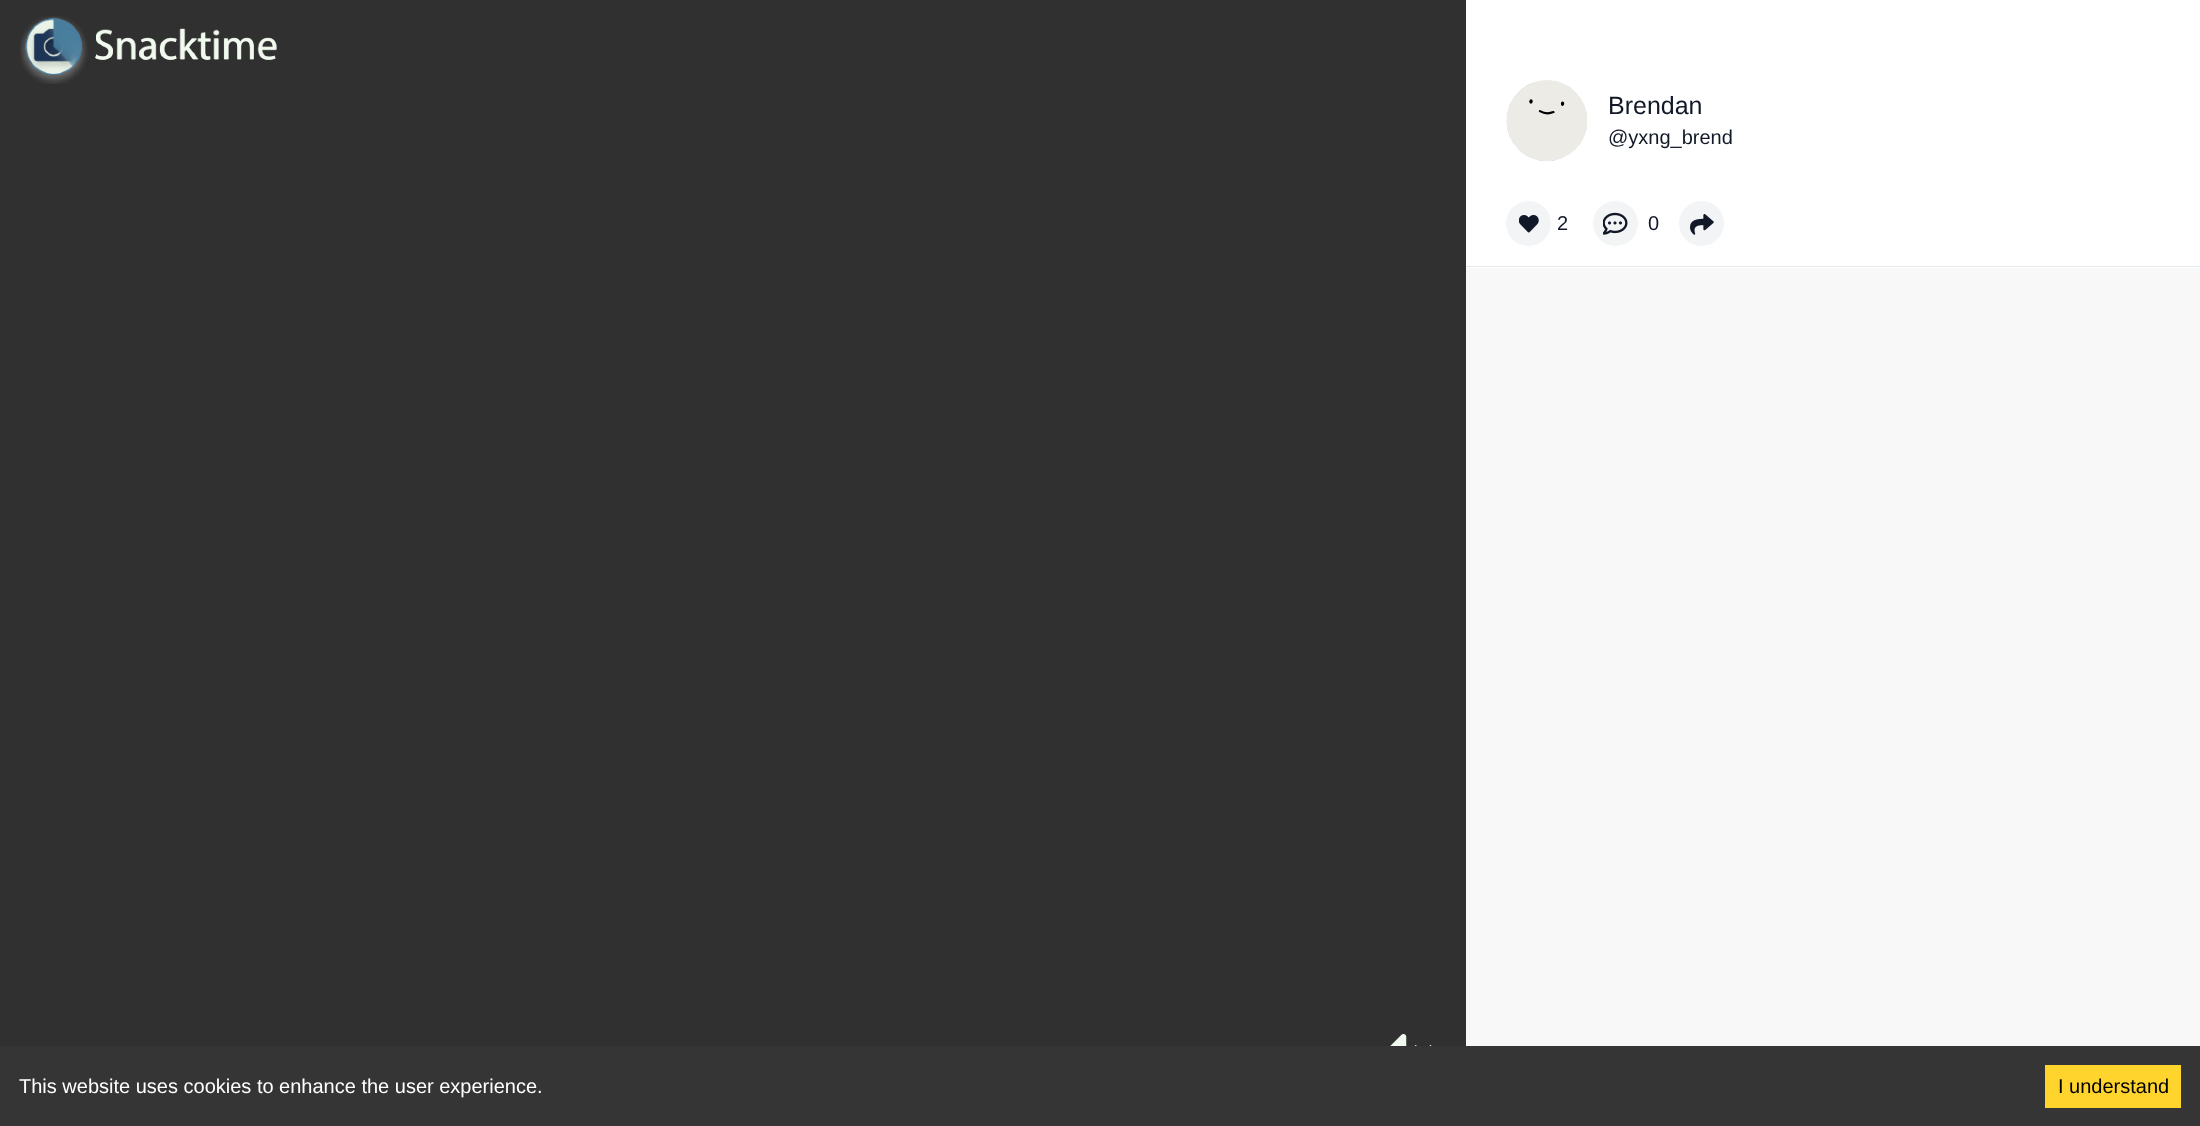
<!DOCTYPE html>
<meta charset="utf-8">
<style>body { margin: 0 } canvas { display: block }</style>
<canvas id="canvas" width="2200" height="1126"></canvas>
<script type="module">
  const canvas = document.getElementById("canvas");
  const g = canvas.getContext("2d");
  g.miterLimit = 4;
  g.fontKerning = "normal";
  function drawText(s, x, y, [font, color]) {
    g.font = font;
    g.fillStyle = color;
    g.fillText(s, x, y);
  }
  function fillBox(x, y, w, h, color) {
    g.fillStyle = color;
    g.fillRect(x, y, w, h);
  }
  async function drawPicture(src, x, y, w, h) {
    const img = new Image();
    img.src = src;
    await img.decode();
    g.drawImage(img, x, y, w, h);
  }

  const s1 = ["25px Liberation Sans", "#111827"];
  const s2 = ["20px Liberation Sans", "#111827"];
  const s3 = ["20px Liberation Sans", "#FFFFFF"];
  const s4 = ["20px Liberation Sans", "#000000"];

  fillBox(0, 0, 2200, 1126, "#FFFFFF");
  fillBox(0, 0, 1466, 1046, "#303030");
  await drawPicture("pic1.png", 20, 16, 257, 68);
  await drawPicture("pic2.png", 20, 16, 257, 68);
  await drawPicture("pic3.png", 1390, 1034, 42, 12);
  await drawPicture("pic4.png", 1506, 80, 82, 81);
  drawText("Brendan", 1608, 114, s1);
  drawText("@yxng_brend", 1608, 144, s2);
  g.fillStyle = "#F3F4F6";
  g.beginPath();
  g.arc(1528.5, 223.5, 22.5, 0, Math.PI * 2);
  g.fill();
  await drawPicture("pic5.png", 1519, 215, 20, 18);
  drawText("2", 1557, 230, s2);
  g.fillStyle = "#F3F4F6";
  g.beginPath();
  g.arc(1615.5, 223.5, 22.5, 0, Math.PI * 2);
  g.fill();
  await drawPicture("pic6.png", 1603, 212, 25, 23);
  drawText("0", 1648, 230, s2);
  g.fillStyle = "#F3F4F6";
  g.beginPath();
  g.arc(1701.5, 223.5, 22.5, 0, Math.PI * 2);
  g.fill();
  await drawPicture("pic7.png", 1690, 214, 24, 21);
  fillBox(1466, 268, 734, 778, "#F8F8F8");
  fillBox(1466, 266, 734, 1, "#E5E7EB");
  fillBox(0, 1046, 2200, 80, "#353535");
  drawText("This website uses cookies to enhance the user experience.", 19, 1093, s3);
  fillBox(2045, 1065, 136, 43, "#FFD42D");
  drawText("I understand", 2058, 1093, s4);
</script>
